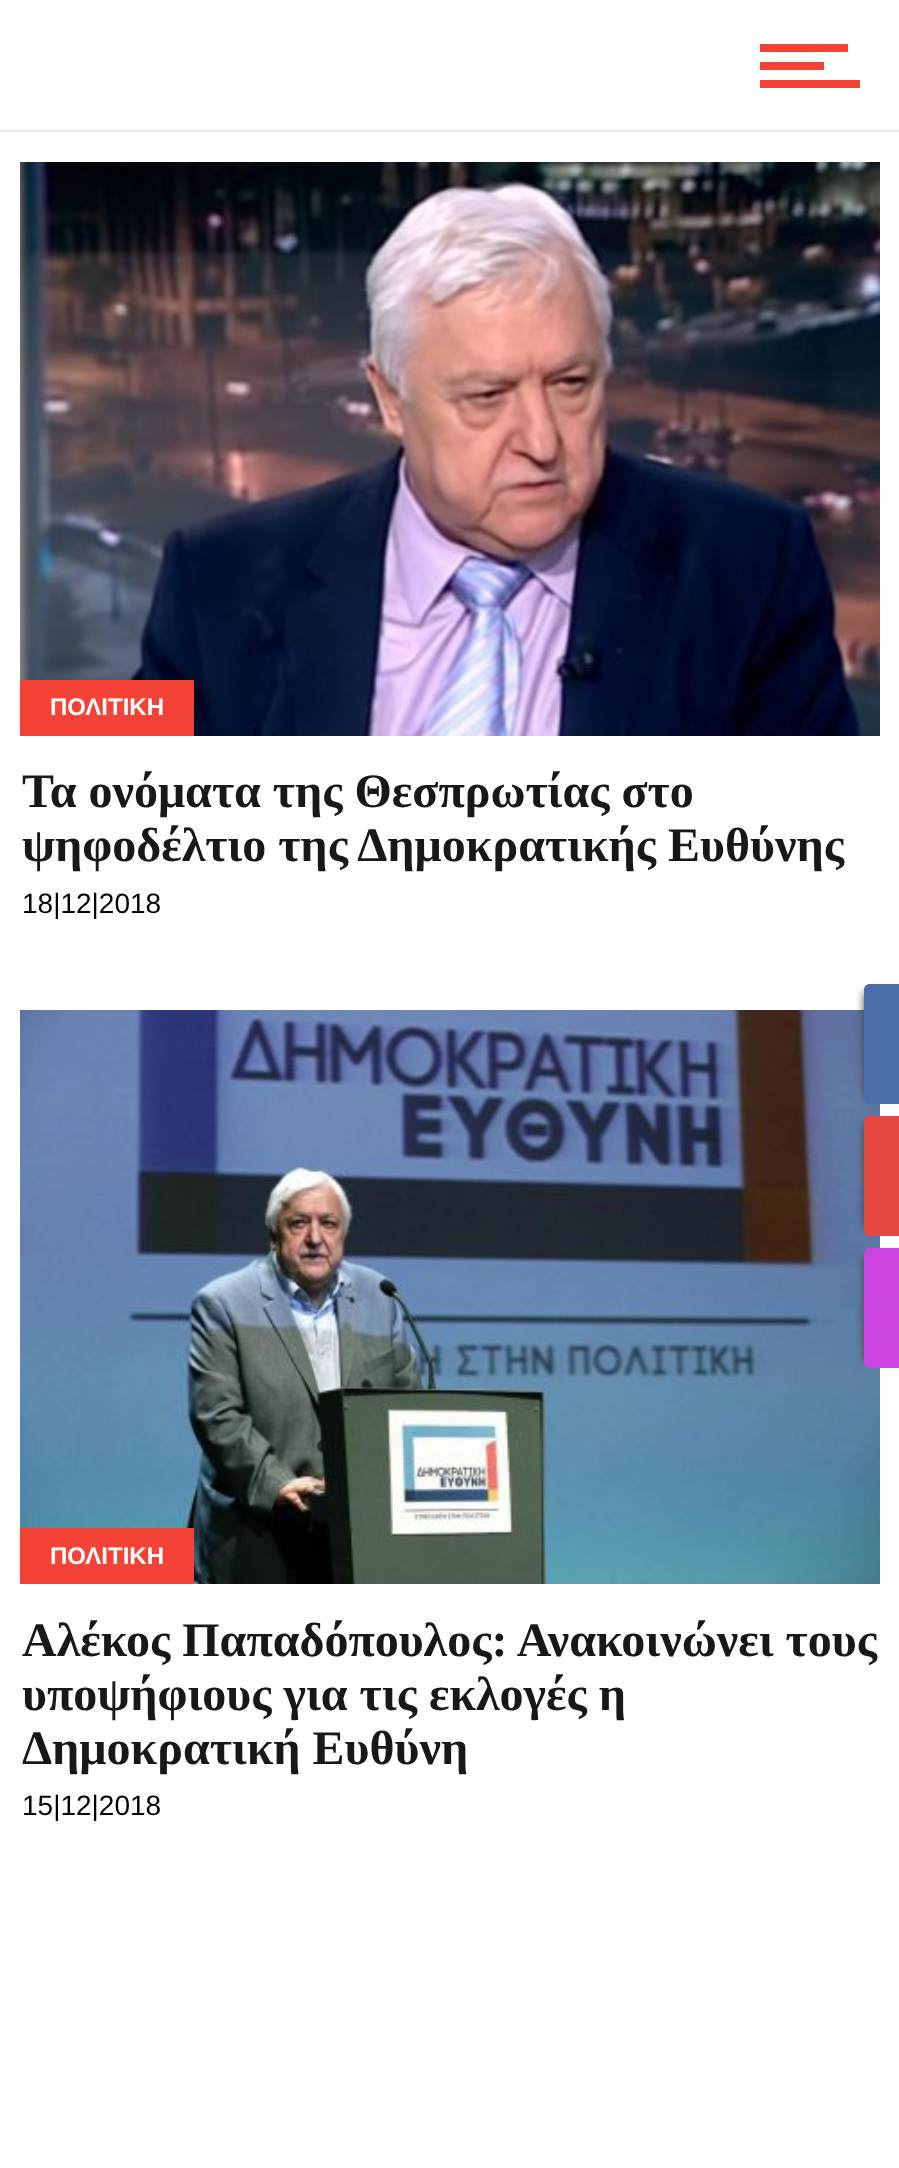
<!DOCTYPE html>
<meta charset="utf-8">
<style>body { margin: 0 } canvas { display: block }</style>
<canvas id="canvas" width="899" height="2168"></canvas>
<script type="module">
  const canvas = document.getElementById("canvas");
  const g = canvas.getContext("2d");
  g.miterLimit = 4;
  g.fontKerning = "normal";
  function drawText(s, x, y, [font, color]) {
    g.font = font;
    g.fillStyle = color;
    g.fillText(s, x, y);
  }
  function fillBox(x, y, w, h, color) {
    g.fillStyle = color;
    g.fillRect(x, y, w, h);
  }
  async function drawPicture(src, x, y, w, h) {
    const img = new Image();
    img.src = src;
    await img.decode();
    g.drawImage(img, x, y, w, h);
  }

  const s1 = ["bold 24px Liberation Sans", "#FFFFFF"];
  const s2 = ["bold 48px Liberation Serif", "#181818"];
  const s3 = ["28px Liberation Sans", "#000000"];

  fillBox(0, 0, 899, 2168, "#FFFFFF");
  fillBox(0, 130, 899, 2, "#EAEAEA");
  fillBox(760, 80, 100, 8, "#F44336");
  fillBox(760, 62, 64, 8, "#F44336");
  fillBox(760, 44, 88, 8, "#F44336");
  await drawPicture("pic1.png", 20, 162, 860, 574);
  fillBox(20, 680, 174, 56, "#F44336");
  drawText("ΠΟΛΙΤΙΚΗ", 50, 715, s1);
  drawText("Τα ονόματα της Θεσπρωτίας στο", 22, 807, s2);
  drawText("ψηφοδέλτιο της Δημοκρατικής Ευθύνης", 22, 861, s2);
  drawText("18|12|2018", 22, 913, s3);
  await drawPicture("pic2.png", 20, 1010, 860, 574);
  fillBox(20, 1528, 174, 56, "#F44336");
  drawText("ΠΟΛΙΤΙΚΗ", 50, 1564, s1);
  drawText("Αλέκος Παπαδόπουλος: Ανακοινώνει τους", 22, 1656, s2);
  drawText("υποψήφιους για τις εκλογές η", 22, 1710, s2);
  drawText("Δημοκρατική Ευθύνη", 22, 1764, s2);
  drawText("15|12|2018", 22, 1815, s3);
  g.fillStyle = "#444444";
  g.filter = "blur(4px)";
  g.beginPath();
  g.rect(864, 992, 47, 104);
  g.fill();
  g.filter = "none";
  g.fillStyle = "#4A6EA9";
  g.beginPath();
  g.moveTo(870, 984);
  g.lineTo(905, 984);
  g.lineTo(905, 1104);
  g.lineTo(870, 1104);
  g.bezierCurveTo(866.5, 1104, 864, 1101.5, 864, 1098);
  g.lineTo(864, 990);
  g.bezierCurveTo(864, 986.5, 866.5, 984, 870, 984);
  g.closePath();
  g.fill();
  g.fillStyle = "#444444";
  g.filter = "blur(4px)";
  g.beginPath();
  g.rect(864, 1124, 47, 104);
  g.fill();
  g.filter = "none";
  g.fillStyle = "#E44840";
  g.beginPath();
  g.moveTo(870, 1116);
  g.lineTo(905, 1116);
  g.lineTo(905, 1236);
  g.lineTo(870, 1236);
  g.bezierCurveTo(866.5, 1236, 864, 1233.5, 864, 1230);
  g.lineTo(864, 1122);
  g.bezierCurveTo(864, 1118.5, 866.5, 1116, 870, 1116);
  g.closePath();
  g.fill();
  g.fillStyle = "#444444";
  g.filter = "blur(4px)";
  g.beginPath();
  g.rect(864, 1256, 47, 104);
  g.fill();
  g.filter = "none";
  g.fillStyle = "#CB43E0";
  g.beginPath();
  g.moveTo(870, 1248);
  g.lineTo(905, 1248);
  g.lineTo(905, 1368);
  g.lineTo(870, 1368);
  g.bezierCurveTo(866.5, 1368, 864, 1365.5, 864, 1362);
  g.lineTo(864, 1254);
  g.bezierCurveTo(864, 1250.5, 866.5, 1248, 870, 1248);
  g.closePath();
  g.fill();
</script>
